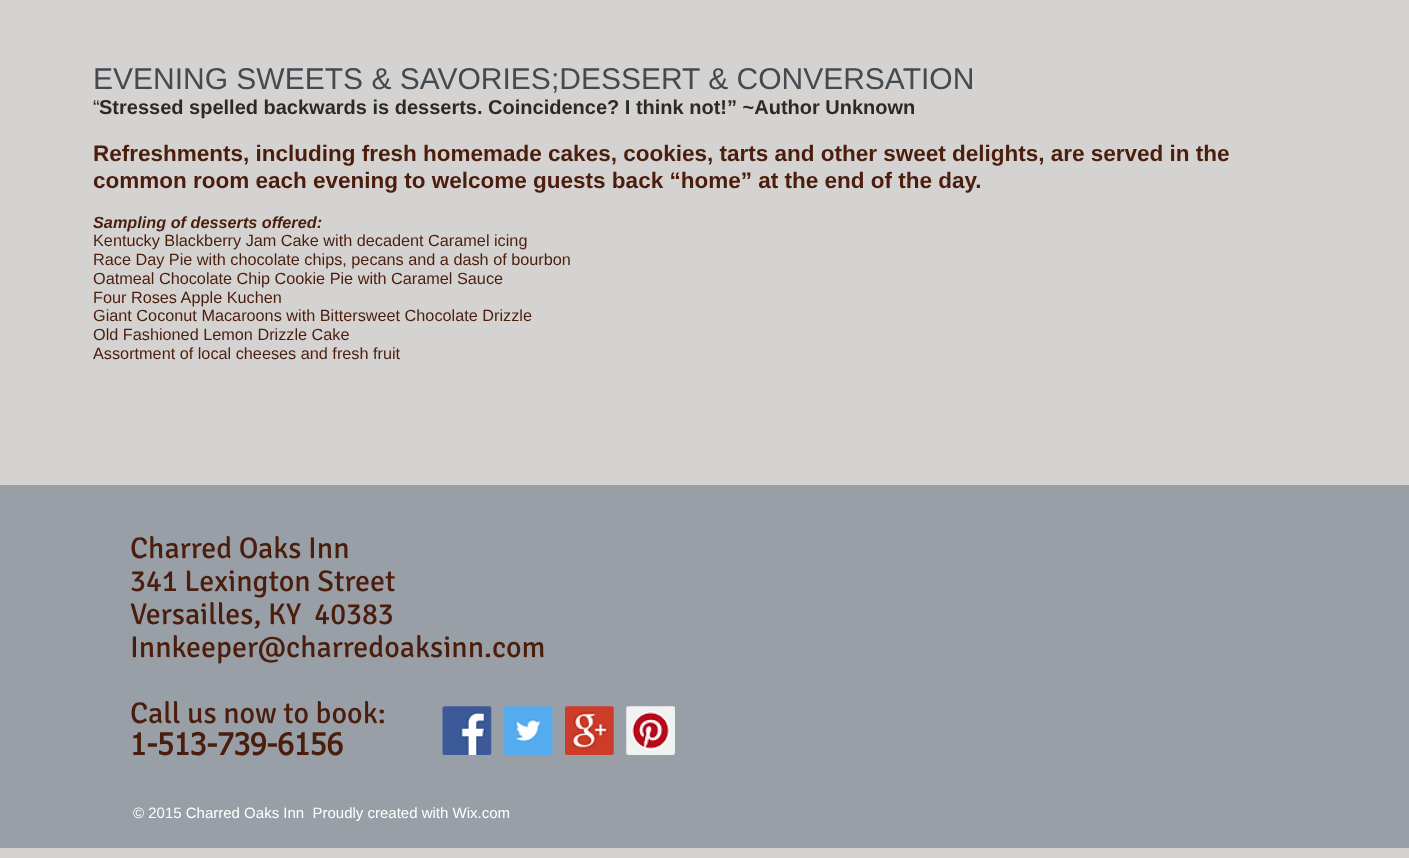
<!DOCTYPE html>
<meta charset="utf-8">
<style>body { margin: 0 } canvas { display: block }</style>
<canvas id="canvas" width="1409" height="858"></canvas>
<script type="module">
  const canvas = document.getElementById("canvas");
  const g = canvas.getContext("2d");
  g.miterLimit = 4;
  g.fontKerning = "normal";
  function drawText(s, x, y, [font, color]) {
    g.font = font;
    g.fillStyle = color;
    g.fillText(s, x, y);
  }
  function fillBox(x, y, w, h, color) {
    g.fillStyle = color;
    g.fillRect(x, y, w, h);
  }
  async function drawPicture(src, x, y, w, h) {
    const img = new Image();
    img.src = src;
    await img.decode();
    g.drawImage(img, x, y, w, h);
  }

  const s1 = ["30px Liberation Sans", "#444A51"];
  const s2 = ["20px Liberation Sans", "#2B2A28"];
  const s3 = ["bold 20px Liberation Sans", "#2B2A28"];
  const s4 = ["bold 22.5px Liberation Sans", "#4A1D0C"];
  const s5 = ["italic bold 16.25px Liberation Sans", "#4A1D0C"];
  const s6 = ["16.25px Liberation Sans", "#4A1D0C"];
  const s7 = ["30px Signika", "#4A1D0C"];
  const s8 = ["bold 30px tahoma", "#4A1D0C"];
  const s9 = ["15px Liberation Sans", "#FFFFFF"];

  fillBox(0, 0, 1409, 858, "#D5D3D1");
  drawText("EVENING SWEETS & SAVORIES;DESSERT & CONVERSATION", 93, 89, s1);
  drawText("“", 93, 114, s2);
  drawText("Stressed spelled backwards is desserts. Coincidence? I think not!” ~Author Unknown", 99, 114, s3);
  drawText("Refreshments, including fresh homemade cakes, cookies, tarts and other sweet delights, are served in the", 93, 161, s4);
  drawText("common room each evening to welcome guests back “home” at the end of the day.", 93, 188, s4);
  drawText("Sampling of desserts offered:", 93, 228, s5);
  drawText("Kentucky Blackberry Jam Cake with decadent Caramel icing", 93, 246, s6);
  drawText("Race Day Pie with chocolate chips, pecans and a dash of bourbon", 93, 265, s6);
  drawText("Oatmeal Chocolate Chip Cookie Pie with Caramel Sauce", 93, 284, s6);
  drawText("Four Roses Apple Kuchen", 93, 303, s6);
  drawText("Giant Coconut Macaroons with Bittersweet Chocolate Drizzle", 93, 321, s6);
  drawText("Old Fashioned Lemon Drizzle Cake", 93, 340, s6);
  drawText("Assortment of local cheeses and fresh fruit", 93, 359, s6);
  fillBox(0, 485, 1409, 363, "#999FA6");
  drawText("Charred Oaks Inn", 130, 558, s7);
  drawText("341 Lexington Street", 130, 591, s7);
  drawText("Versailles, KY  40383", 130, 624, s7);
  drawText("Innkeeper@charredoaksinn.com", 130, 657, s7);
  drawText("Call us now to book:", 130, 723, s7);
  drawText("1-513-739-6156", 130, 755, s8);
  await drawPicture("pic1.png", 442, 706, 50, 49);
  await drawPicture("pic2.png", 503, 706, 50, 49);
  await drawPicture("pic3.png", 565, 706, 49, 49);
  await drawPicture("pic4.png", 626, 706, 49, 49);
  drawText("© 2015 Charred Oaks Inn  Proudly created with Wix.com", 133, 818, s9);
</script>
